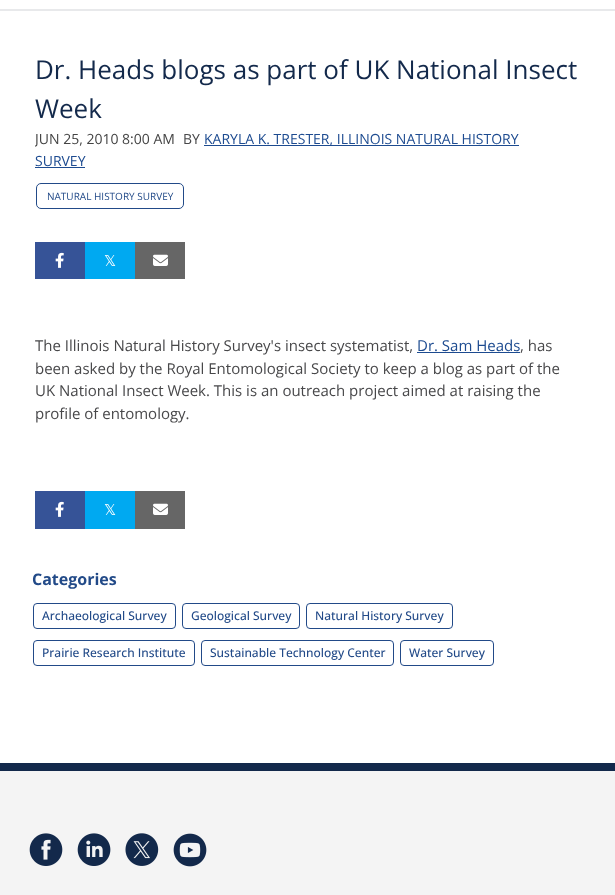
<!DOCTYPE html>
<meta charset="utf-8">
<style>body { margin: 0 } canvas { display: block }</style>
<canvas id="canvas" width="615" height="895"></canvas>
<script type="module">
  const canvas = document.getElementById("canvas");
  const g = canvas.getContext("2d");
  g.miterLimit = 4;
  g.fontKerning = "none";
  function drawText(s, x, y, [font, color]) {
    g.font = font;
    g.fillStyle = color;
    g.fillText(s, x, y);
  }
  function fillBox(x, y, w, h, color) {
    g.fillStyle = color;
    g.fillRect(x, y, w, h);
  }
  async function drawPicture(src, x, y, w, h) {
    const img = new Image();
    img.src = src;
    await img.decode();
    g.drawImage(img, x, y, w, h);
  }

  const s1 = ["26px Open Sans", "#13294B"];
  const s2 = ["14px Open Sans", "#444444"];
  const s3 = ["14px Open Sans", "#48484A"];
  const s4 = ["14px Open Sans", "#1D4B90"];
  const s5 = ["10px Open Sans", "#224A88"];
  const s6 = ["15px DejaVu Sans", "#FFFFFF"];
  const s7 = ["15px Open Sans", "#48484A"];
  const s8 = ["15px Open Sans", "#1D4B90"];
  const s9 = ["bold 16px Open Sans", "#224A88"];
  const s10 = ["500 12px Open Sans", "#224A88"];

  fillBox(0, 0, 615, 895, "#FFFFFF");
  fillBox(0, 9, 615, 2, "#E8E9EB");
  drawText("Dr. Heads blogs as part of UK National Insect", 35, 79, s1);
  drawText("Week", 35, 118, s1);
  g.save();
  g.beginPath();
  g.rect(35, 128, 545, 82);
  g.clip();
  drawText("JUN 25, 2010 8:00 AM", 35, 144, s2);
  g.restore();
  drawText("BY", 183, 144, s3);
  fillBox(204, 145, 315, 1, "#1D4B90");
  drawText("KARYLA K. TRESTER, ILLINOIS NATURAL HISTORY", 204, 144, s4);
  drawText("SURVEY", 35, 166, s4);
  fillBox(35, 167, 50, 1, "#1D4B90");
  g.beginPath();
  g.roundRect(36.5, 183.5, 147, 25, 4.5);
  g.strokeStyle = "#224A88";
  g.stroke();
  drawText("NATURAL HISTORY SURVEY", 47, 200, s5);
  fillBox(35, 242, 50, 37, "#365397");
  await drawPicture("pic1.png", 55, 252, 9, 16);
  fillBox(85, 242, 50, 37, "#00A9F1");
  drawText("𝕏", 104, 266, s6);
  fillBox(135, 242, 50, 37, "#666666");
  await drawPicture("pic2.png", 153, 254, 15, 12);
  drawText("The Illinois Natural History Survey's insect systematist,", 35, 351, s7);
  drawText("Dr. Sam Heads", 417, 351, s8);
  fillBox(417, 352, 103, 1, "#1D4B90");
  drawText(", has", 520, 351, s7);
  drawText("been asked by the Royal Entomological Society to keep a blog as part of the", 35, 374, s7);
  drawText("UK National Insect Week. This is an outreach project aimed at raising the", 35, 396, s7);
  drawText("profile of entomology.", 35, 419, s7);
  fillBox(35, 491, 50, 38, "#365397");
  await drawPicture("pic1.png", 55, 501, 9, 16);
  fillBox(85, 491, 50, 38, "#00A9F1");
  drawText("𝕏", 104, 515, s6);
  fillBox(135, 491, 50, 38, "#666666");
  await drawPicture("pic2.png", 153, 503, 15, 12);
  drawText("Categories", 32, 585, s9);
  g.beginPath();
  g.roundRect(33.5, 603.5, 142, 25, 3.5);
  g.stroke();
  drawText("Archaeological Survey", 42, 620, s10);
  g.beginPath();
  g.roundRect(182.5, 603.5, 117, 25, 3.5);
  g.stroke();
  drawText("Geological Survey", 191, 620, s10);
  g.beginPath();
  g.roundRect(306.5, 603.5, 146, 25, 3.5);
  g.stroke();
  drawText("Natural History Survey", 315, 620, s10);
  g.beginPath();
  g.roundRect(33.5, 640.5, 161, 25, 3.5);
  g.stroke();
  drawText("Prairie Research Institute", 42, 657, s10);
  g.beginPath();
  g.roundRect(201.5, 640.5, 192, 25, 3.5);
  g.stroke();
  drawText("Sustainable Technology Center", 210, 657, s10);
  g.beginPath();
  g.roundRect(400.5, 640.5, 93, 25, 3.5);
  g.stroke();
  drawText("Water Survey", 409, 657, s10);
  fillBox(0, 771, 615, 124, "#F4F4F4");
  fillBox(0, 763, 615, 8, "#13294B");
  await drawPicture("pic3.png", 29, 833, 34, 33);
  await drawPicture("pic4.png", 77, 833, 34, 33);
  await drawPicture("pic5.png", 125, 833, 34, 33);
  await drawPicture("pic6.png", 173, 833, 34, 34);
</script>
